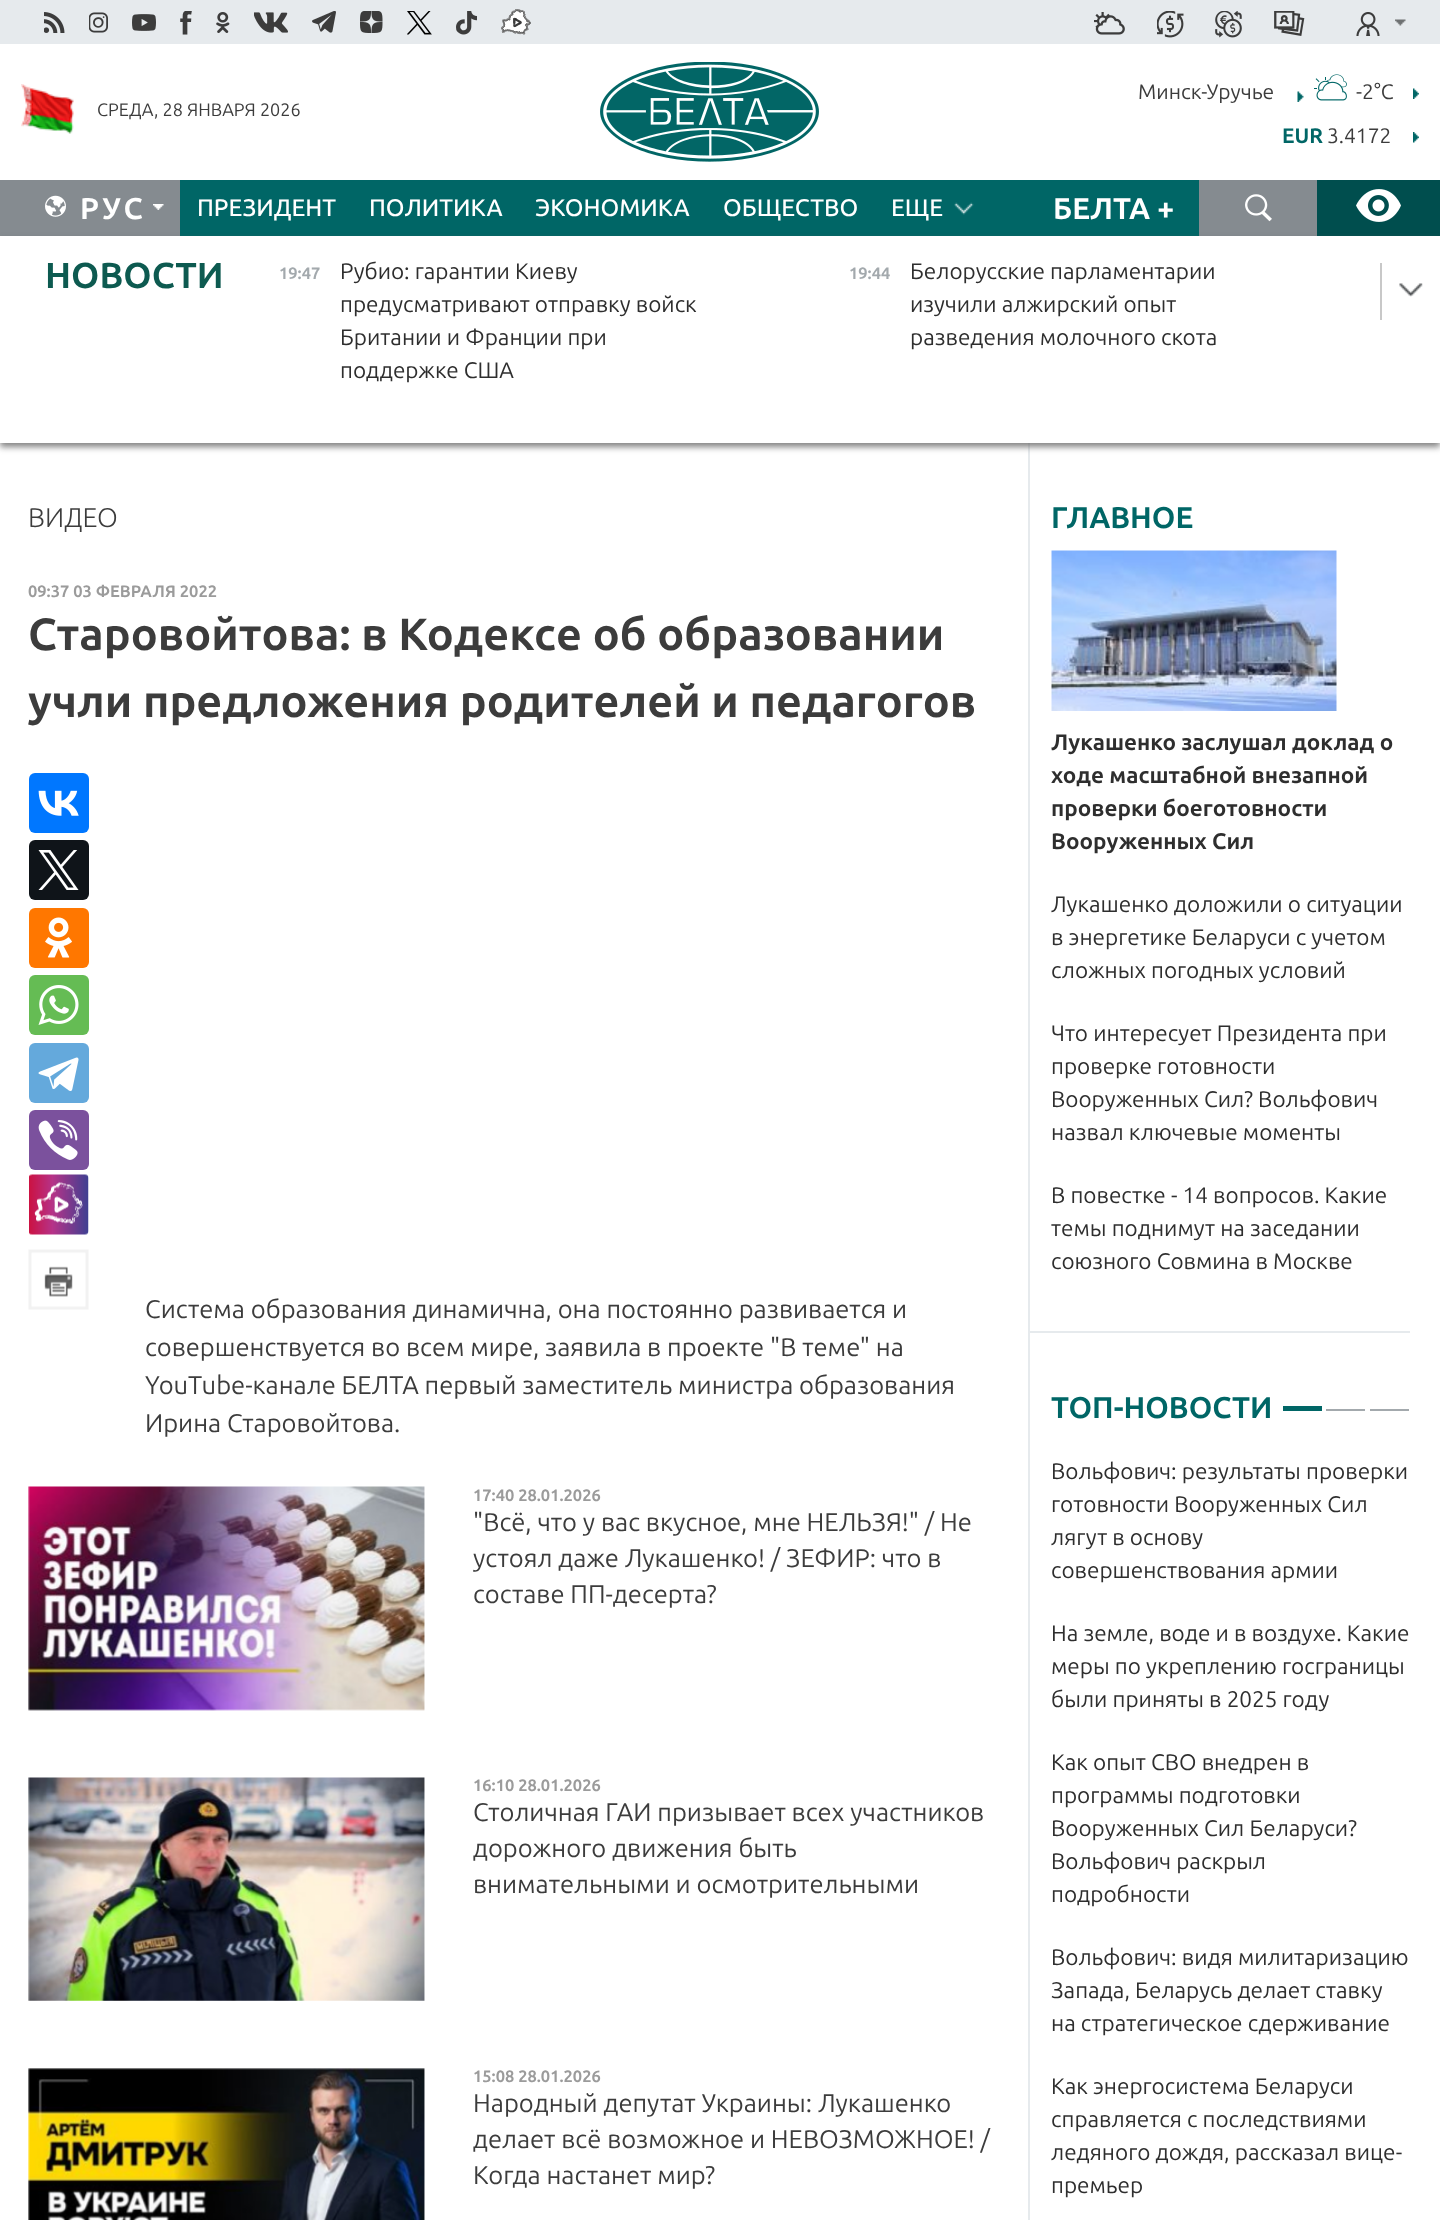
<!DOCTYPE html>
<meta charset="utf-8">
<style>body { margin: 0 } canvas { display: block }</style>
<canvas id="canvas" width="1440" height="2220"></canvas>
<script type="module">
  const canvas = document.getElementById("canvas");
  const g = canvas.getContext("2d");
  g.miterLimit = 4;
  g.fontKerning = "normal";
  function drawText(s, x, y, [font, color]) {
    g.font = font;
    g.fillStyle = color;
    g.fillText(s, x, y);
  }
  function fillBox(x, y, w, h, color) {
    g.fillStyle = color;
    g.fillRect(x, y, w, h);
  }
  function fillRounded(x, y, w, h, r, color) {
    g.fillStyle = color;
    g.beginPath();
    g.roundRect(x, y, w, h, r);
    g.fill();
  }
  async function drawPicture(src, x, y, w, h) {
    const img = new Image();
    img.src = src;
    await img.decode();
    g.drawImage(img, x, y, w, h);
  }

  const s1 = ["18px Ubuntu", "#3C3C3C"];
  const s2 = ["21px Ubuntu", "#3C3C3C"];
  const s3 = ["bold 21px Ubuntu", "#006666"];
  const s4 = ["bold 30px Ubuntu", "#FFFFFF"];
  const s5 = ["500 24px Ubuntu", "#FFFFFF"];
  const s6 = ["bold 36px Ubuntu", "#0D5A50"];
  const s7 = ["bold 16.5px Ubuntu", "#A3A9AD"];
  const s8 = ["22.5px Ubuntu", "#2E2E2E"];
  const s9 = ["300 27px Ubuntu", "#3C3C3C"];
  const s10 = ["bold 16.5px Ubuntu", "#9B9B9B"];
  const s11 = ["bold 45px Ubuntu", "#3C3C3C"];
  const s12 = ["25.5px Ubuntu", "#3C3C3C"];
  const s13 = ["bold 30px Ubuntu", "#006666"];
  const s14 = ["bold 22.5px Ubuntu", "#2E2E2E"];

  fillBox(0, 0, 1440, 2220, "#FFFFFF");
  fillBox(0, 0, 1440, 44, "#E6EAED");
  await drawPicture("pic1.png", 44, 12, 21, 21);
  await drawPicture("pic2.png", 89, 12, 19, 21);
  await drawPicture("pic3.png", 132, 14, 24, 17);
  await drawPicture("pic4.png", 180, 11, 12, 24);
  await drawPicture("pic5.png", 216, 12, 14, 21);
  await drawPicture("pic6.png", 254, 12, 34, 21);
  await drawPicture("pic7.png", 312, 11, 24, 22);
  await drawPicture("pic8.png", 360, 11, 23, 22);
  await drawPicture("pic9.png", 407, 11, 25, 24);
  await drawPicture("pic10.png", 456, 11, 21, 24);
  await drawPicture("pic11.png", 501, 9, 30, 26);
  await drawPicture("pic12.png", 1094, 12, 31, 23);
  await drawPicture("pic13.png", 1157, 11, 27, 27);
  await drawPicture("pic14.png", 1215, 11, 27, 27);
  await drawPicture("pic15.png", 1274, 11, 31, 25);
  await drawPicture("pic16.png", 1395, 19, 11, 7);
  await drawPicture("pic17.png", 1356, 12, 24, 24);
  await drawPicture("pic18.png", 21, 84, 53, 50);
  drawText("СРЕДА, 28 ЯНВАРЯ 2026", 97, 116, s1);
  await drawPicture("pic19.png", 600, 62, 219, 100);
  await drawPicture("pic20.png", 1297, 91, 7, 11);
  drawText("Минск-Уручье", 1138, 99, s2);
  await drawPicture("pic21.png", 1314, 74, 33, 27);
  drawText("-2°C", 1356, 99, s2);
  await drawPicture("pic22.png", 1413, 88, 6, 11);
  drawText("EUR", 1282, 143, s3);
  drawText("3.4172", 1327, 143, s2);
  await drawPicture("pic23.png", 1413, 132, 6, 11);
  fillBox(180, 180, 1019, 56, "#006666");
  fillBox(0, 180, 180, 56, "#858B90");
  await drawPicture("pic24.png", 45, 195, 21, 22);
  g.letterSpacing = "3px";
  drawText("РУС", 80, 219, s4);
  await drawPicture("pic25.png", 153, 204, 11, 6);
  g.letterSpacing = "0px";
  drawText("ПРЕЗИДЕНТ", 197, 216, s5);
  drawText("ПОЛИТИКА", 369, 216, s5);
  drawText("ЭКОНОМИКА", 535, 216, s5);
  drawText("ОБЩЕСТВО", 723, 216, s5);
  drawText("ЕЩЕ", 891, 216, s5);
  await drawPicture("pic26.png", 954, 202, 20, 13);
  drawText("БЕЛТА +", 1053, 219, s4);
  fillBox(1199, 180, 118, 56, "#858B90");
  await drawPicture("pic27.png", 1245, 194, 27, 28);
  fillBox(1317, 180, 123, 56, "#004E4E");
  await drawPicture("pic28.png", 1356, 189, 45, 33);
  fillBox(1028, 443, 2, 1777, "#E6EAED");
  g.fillStyle = "rgba(100, 100, 100, 0.8)";
  g.filter = "blur(3px)";
  g.beginPath();
  g.rect(0, 240, 1440, 207);
  g.fill();
  g.filter = "none";
  fillBox(0, 236, 1440, 207, "#FFFFFF");
  drawText("НОВОСТИ", 45, 288, s6);
  drawText("19:47", 279, 279, s7);
  drawText("Рубио: гарантии Киеву", 340, 279, s8);
  drawText("предусматривают отправку войск", 340, 312, s8);
  drawText("Британии и Франции при", 340, 345, s8);
  drawText("поддержке США", 340, 378, s8);
  drawText("19:44", 849, 279, s7);
  drawText("Белорусские парламентарии", 910, 279, s8);
  drawText("изучили алжирский опыт", 910, 312, s8);
  drawText("разведения молочного скота", 910, 345, s8);
  await drawPicture("pic29.png", 1399, 283, 24, 14);
  fillBox(1380, 263, 2, 57, "#C8C8C8");
  drawText("ВИДЕО", 28, 527, s9);
  drawText("09:37 03 ФЕВРАЛЯ 2022", 28, 597, s10);
  drawText("Старовойтова: в Кодексе об образовании", 28, 650, s11);
  drawText("учли предложения родителей и педагогов", 28, 717, s11);
  fillRounded(29, 773, 60, 60, 6, "#0077FF");
  await drawPicture("pic30.png", 38, 790, 41, 26);
  fillRounded(29, 840, 60, 60, 6, "#0F1419");
  await drawPicture("pic31.png", 38, 850, 41, 40);
  fillRounded(29, 908, 60, 60, 6, "#FF7700");
  await drawPicture("pic32.png", 45, 917, 27, 41);
  fillRounded(29, 975, 60, 60, 6, "#65BC54");
  await drawPicture("pic33.png", 38, 985, 41, 40);
  fillRounded(29, 1043, 60, 60, 6, "#64A9DC");
  await drawPicture("pic34.png", 38, 1057, 41, 34);
  fillRounded(29, 1110, 60, 60, 6, "#7B519D");
  await drawPicture("pic35.png", 38, 1120, 40, 40);
  await drawPicture("pic36.png", 29, 1174, 60, 61);
  await drawPicture("pic37.png", 28, 1249, 61, 61);
  drawText("Система образования динамична, она постоянно развивается и", 145, 1318, s12);
  drawText("совершенствуется во всем мире, заявила в проекте \"В теме\" на", 145, 1356, s12);
  drawText("YouTube-канале БЕЛТА первый заместитель министра образования", 145, 1394, s12);
  drawText("Ирина Старовойтова.", 145, 1432, s12);
  await drawPicture("pic38.png", 28, 1486, 397, 225);
  drawText("17:40 28.01.2026", 473, 1501, s10);
  drawText("\"Всё, что у вас вкусное, мне НЕЛЬЗЯ!\" / Не", 473, 1531, s12);
  drawText("устоял даже Лукашенко! / ЗЕФИР: что в", 473, 1567, s12);
  drawText("составе ПП-десерта?", 473, 1603, s12);
  await drawPicture("pic39.png", 28, 1777, 397, 224);
  drawText("16:10 28.01.2026", 473, 1791, s10);
  drawText("Столичная ГАИ призывает всех участников", 473, 1821, s12);
  drawText("дорожного движения быть", 473, 1857, s12);
  drawText("внимательными и осмотрительными", 473, 1893, s12);
  await drawPicture("pic40.png", 28, 2068, 397, 152);
  drawText("15:08 28.01.2026", 473, 2082, s10);
  drawText("Народный депутат Украины: Лукашенко", 473, 2112, s12);
  drawText("делает всё возможное и НЕВОЗМОЖНОЕ! /", 473, 2148, s12);
  drawText("Когда настанет мир?", 473, 2184, s12);
  fillBox(1028, 1331, 382, 2, "#E6EAED");
  drawText("ГЛАВНОЕ", 1051, 528, s13);
  await drawPicture("pic41.png", 1051, 550, 286, 161);
  drawText("Лукашенко заслушал доклад о", 1051, 750, s14);
  drawText("ходе масштабной внезапной", 1051, 783, s14);
  drawText("проверки боеготовности", 1051, 816, s14);
  drawText("Вооруженных Сил", 1051, 849, s14);
  drawText("Лукашенко доложили о ситуации", 1051, 912, s8);
  drawText("в энергетике Беларуси с учетом", 1051, 945, s8);
  drawText("сложных погодных условий", 1051, 978, s8);
  drawText("Что интересует Президента при", 1051, 1041, s8);
  drawText("проверке готовности", 1051, 1074, s8);
  drawText("Вооруженных Сил? Вольфович", 1051, 1107, s8);
  drawText("назвал ключевые моменты", 1051, 1140, s8);
  drawText("В повестке - 14 вопросов. Какие", 1051, 1203, s8);
  drawText("темы поднимут на заседании", 1051, 1236, s8);
  drawText("союзного Совмина в Москве", 1051, 1269, s8);
  drawText("ТОП-НОВОСТИ", 1051, 1418, s13);
  fillBox(1283, 1406, 39, 5, "#006666");
  fillBox(1326, 1409, 39, 2, "#A3A9AD");
  fillBox(1370, 1409, 39, 2, "#A3A9AD");
  drawText("Вольфович: результаты проверки", 1051, 1479, s8);
  drawText("готовности Вооруженных Сил", 1051, 1512, s8);
  drawText("лягут в основу", 1051, 1545, s8);
  drawText("совершенствования армии", 1051, 1578, s8);
  drawText("На земле, воде и в воздухе. Какие", 1051, 1641, s8);
  drawText("меры по укреплению госграницы", 1051, 1674, s8);
  drawText("были приняты в 2025 году", 1051, 1707, s8);
  drawText("Как опыт СВО внедрен в", 1051, 1770, s8);
  drawText("программы подготовки", 1051, 1803, s8);
  drawText("Вооруженных Сил Беларуси?", 1051, 1836, s8);
  drawText("Вольфович раскрыл", 1051, 1869, s8);
  drawText("подробности", 1051, 1902, s8);
  drawText("Вольфович: видя милитаризацию", 1051, 1965, s8);
  drawText("Запада, Беларусь делает ставку", 1051, 1998, s8);
  drawText("на стратегическое сдерживание", 1051, 2031, s8);
  drawText("Как энергосистема Беларуси", 1051, 2094, s8);
  drawText("справляется с последствиями", 1051, 2127, s8);
  drawText("ледяного дождя, рассказал вице-", 1051, 2160, s8);
  drawText("премьер", 1051, 2193, s8);
</script>
